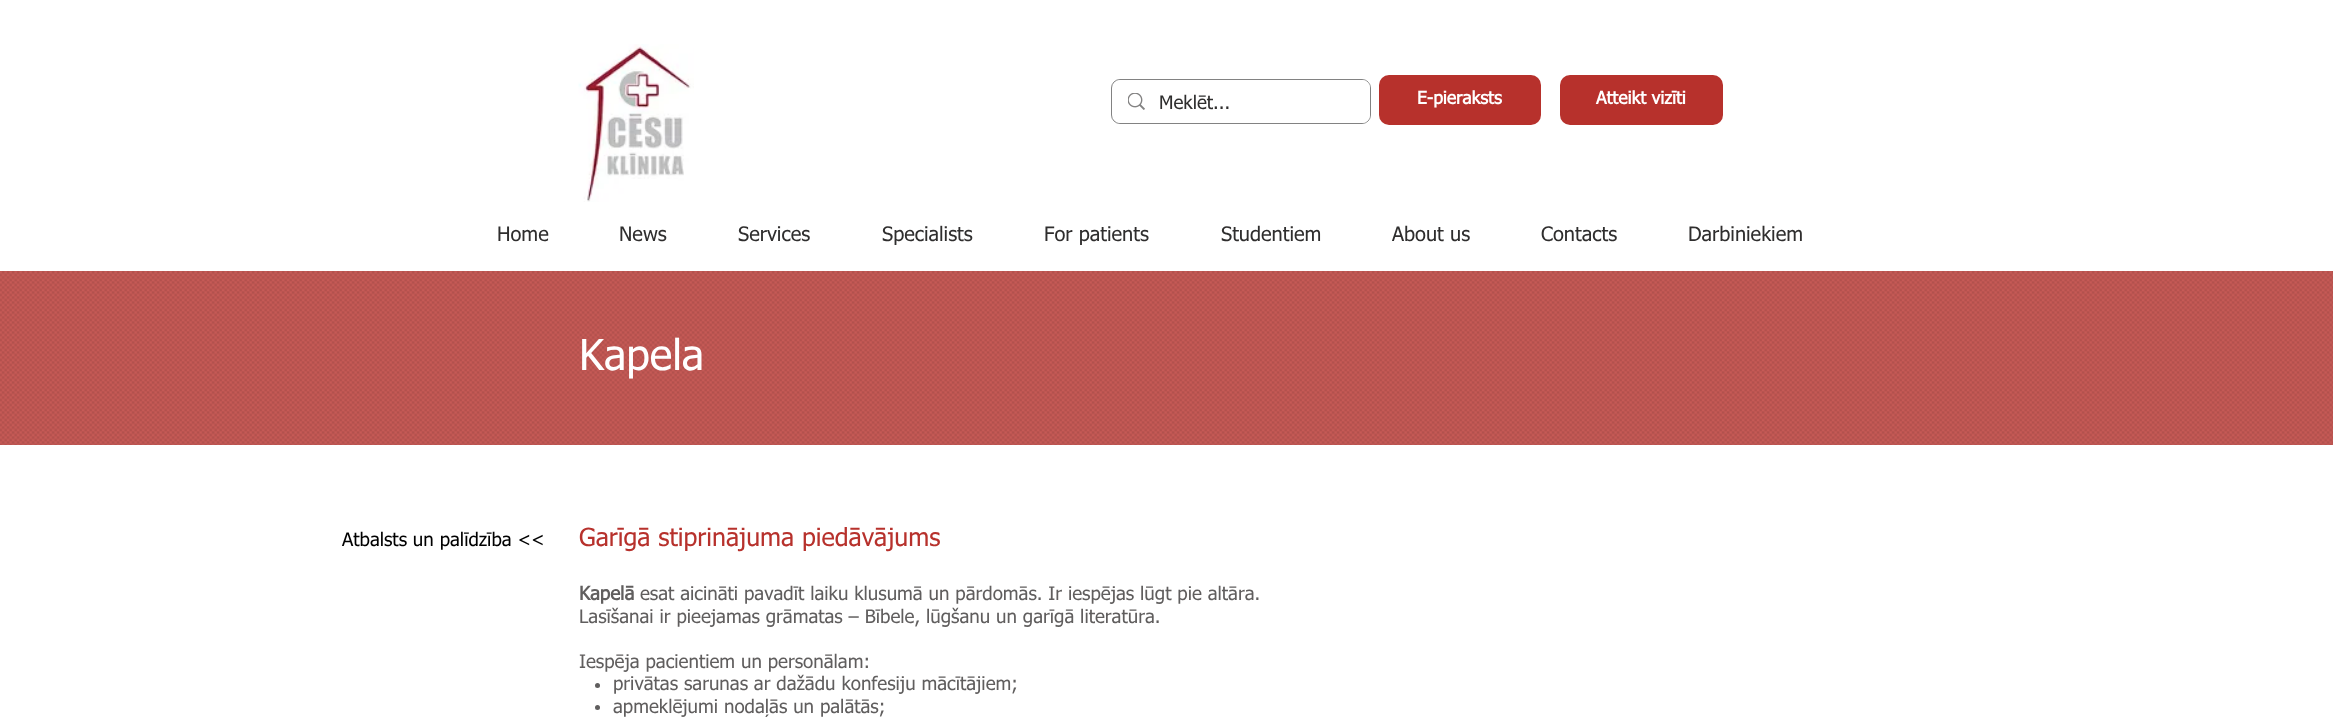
<!DOCTYPE html>
<meta charset="utf-8">
<style>body { margin: 0 } canvas { display: block }</style>
<canvas id="canvas" width="2333" height="725"></canvas>
<script type="module">
  const canvas = document.getElementById("canvas");
  const g = canvas.getContext("2d");
  g.miterLimit = 4;
  g.fontKerning = "normal";
  function drawText(s, x, y, [font, color]) {
    g.font = font;
    g.fillStyle = color;
    g.fillText(s, x, y);
  }
  function fillBox(x, y, w, h, color) {
    g.fillStyle = color;
    g.fillRect(x, y, w, h);
  }
  function fillRounded(x, y, w, h, r, color) {
    g.fillStyle = color;
    g.beginPath();
    g.roundRect(x, y, w, h, r);
    g.fill();
  }
  async function drawPicture(src, x, y, w, h) {
    const img = new Image();
    img.src = src;
    await img.decode();
    g.drawImage(img, x, y, w, h);
  }

  const s1 = ["18.75px tahoma", "#2F2E2E"];
  const s2 = ["bold 17.5px tahoma", "#FFFFFF"];
  const s3 = ["20px tahoma", "#2F2E2E"];
  const s4 = ["42.5px tahoma", "#FFFFFF"];
  const s5 = ["18.75px tahoma", "#000000"];
  const s6 = ["25px tahoma", "#B7312C"];
  const s7 = ["bold 18.75px tahoma", "#605E5E"];
  const s8 = ["18.75px tahoma", "#605E5E"];

  fillBox(0, 0, 2333, 725, "#FFFFFF");
  await drawPicture("pic1.png", 578, 44, 116, 158);
  g.beginPath();
  g.roundRect(1111.5, 79.5, 259, 44, 8.5);
  g.strokeStyle = "#828282";
  g.stroke();
  fillRounded(1113, 80, 257, 43, 8, "#FFFFFF");
  await drawPicture("pic2.png", 1128, 93, 17, 17);
  drawText("Meklēt...", 1159, 109, s1);
  fillRounded(1379, 75, 162, 50, 10, "#B7312C");
  drawText("E-pieraksts", 1417, 104, s2);
  fillRounded(1560, 75, 163, 50, 10, "#B7312C");
  drawText("Atteikt vizīti", 1596, 104, s2);
  drawText("Home", 497, 241, s3);
  drawText("News", 619, 241, s3);
  drawText("Services", 738, 241, s3);
  drawText("Specialists", 882, 241, s3);
  drawText("For patients", 1044, 241, s3);
  drawText("Studentiem", 1221, 241, s3);
  drawText("About us", 1392, 241, s3);
  drawText("Contacts", 1541, 241, s3);
  drawText("Darbiniekiem", 1688, 241, s3);
  fillBox(0, 271, 2333, 174, "#C65A56");
  await drawPicture("pic3.png", 0, 271, 2333, 174);
  drawText("Kapela", 579, 370, s4);
  drawText("Atbalsts un palīdzība <<", 342, 546, s5);
  drawText("Garīgā stiprinājuma piedāvājums", 579, 546, s6);
  drawText("Kapelā", 579, 600, s7);
  drawText("esat aicināti pavadīt laiku klusumā un pārdomās. Ir iespējas lūgt pie altāra.", 640, 600, s8);
  drawText("Lasīšanai ir pieejamas grāmatas – Bībele, lūgšanu un garīgā literatūra.", 579, 623, s8);
  drawText("Iespēja pacientiem un personālam:", 579, 668, s8);
  g.beginPath();
  g.arc(597.5, 685.5, 2.5, 0, Math.PI * 2);
  g.fill();
  drawText("privātas sarunas ar dažādu konfesiju mācītājiem;", 613, 690, s8);
  g.beginPath();
  g.arc(597.5, 707.5, 2.5, 0, Math.PI * 2);
  g.fill();
  drawText("apmeklējumi nodaļās un palātās;", 613, 713, s8);
</script>
